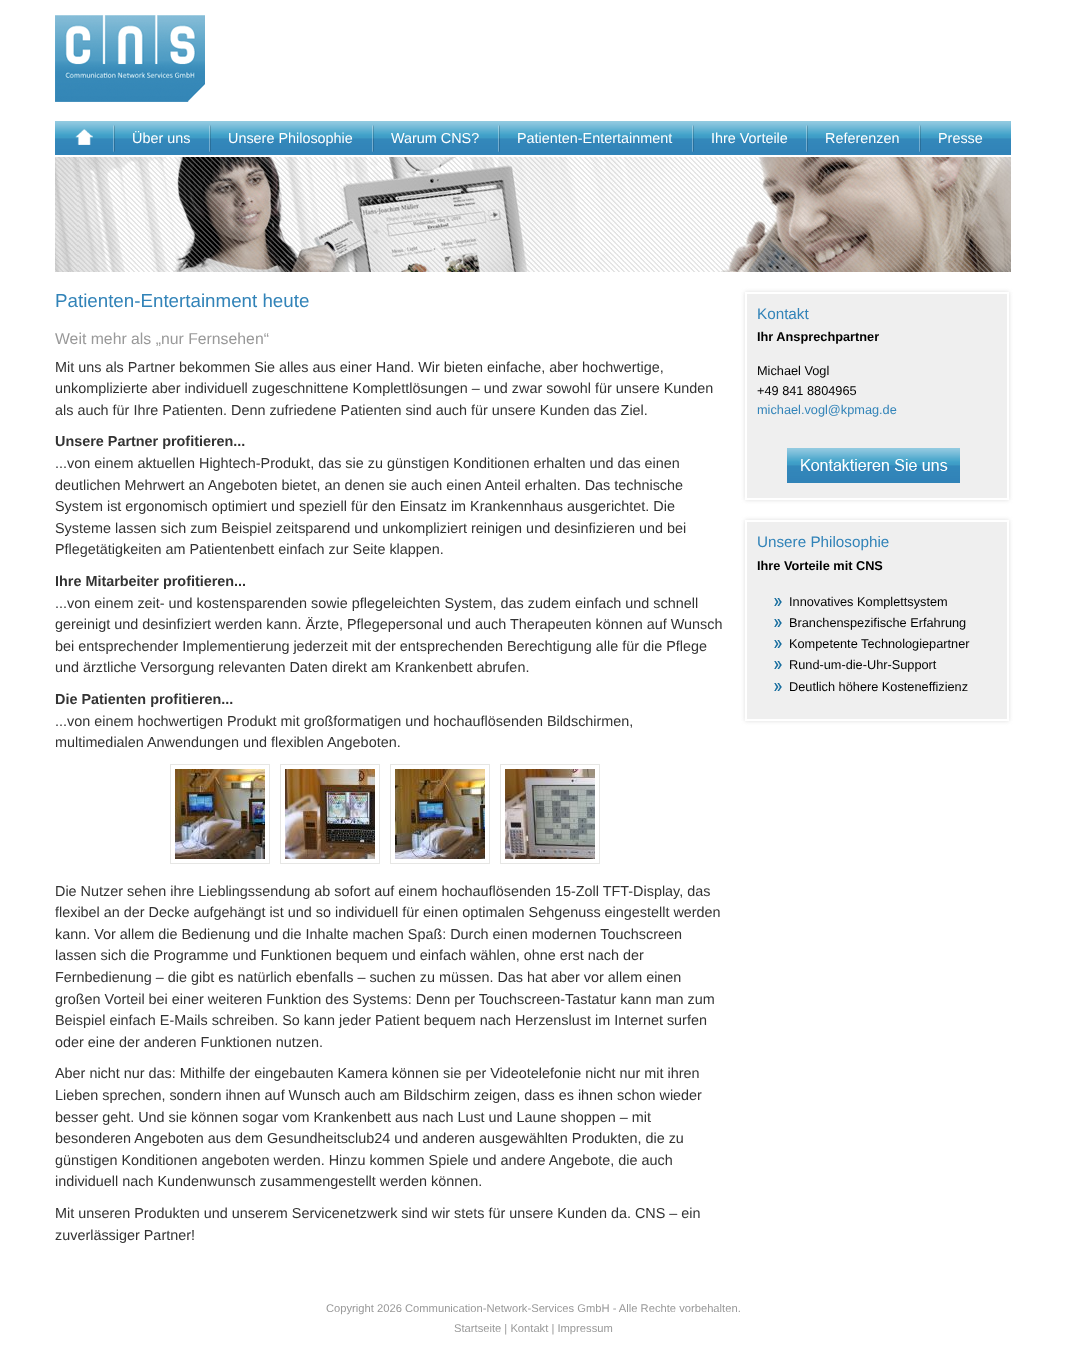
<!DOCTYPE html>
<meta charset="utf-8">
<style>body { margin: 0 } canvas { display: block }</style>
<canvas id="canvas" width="1066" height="1348"></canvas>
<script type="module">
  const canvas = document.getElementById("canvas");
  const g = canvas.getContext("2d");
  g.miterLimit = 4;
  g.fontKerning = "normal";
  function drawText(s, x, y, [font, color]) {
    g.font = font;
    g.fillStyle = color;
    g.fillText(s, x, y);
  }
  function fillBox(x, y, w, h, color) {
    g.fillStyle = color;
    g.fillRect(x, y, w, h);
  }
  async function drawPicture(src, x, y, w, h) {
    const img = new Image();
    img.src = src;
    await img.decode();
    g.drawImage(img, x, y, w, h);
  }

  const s1 = ["14.4px Liberation Sans", "#FFFFFF"];
  const s2 = ["18.75px Liberation Sans", "#3183B8"];
  const s3 = ["15.8px Liberation Sans", "#999999"];
  const s4 = ["14.4px Liberation Sans", "#333333"];
  const s5 = ["bold 14.4px Liberation Sans", "#333333"];
  const s6 = ["15.25px Liberation Sans", "#3183B8"];
  const s7 = ["bold 12.75px Liberation Sans", "#000000"];
  const s8 = ["12.75px Liberation Sans", "#000000"];
  const s9 = ["12.75px Liberation Sans", "#3183B8"];
  const s10 = ["11.2px Liberation Sans", "#999999"];

  fillBox(0, 0, 1066, 1348, "#FFFFFF");
  await drawPicture("pic1.png", 55, 15, 150, 87);
  await drawPicture("pic2.png", 55, 121, 956, 34);
  await drawPicture("pic3.png", 75, 129, 18, 16);
  await drawPicture("pic4.png", 113, 125, 2, 27);
  drawText("Über uns", 132, 143, s1);
  await drawPicture("pic4.png", 209, 125, 2, 27);
  drawText("Unsere Philosophie", 228, 143, s1);
  await drawPicture("pic4.png", 372, 125, 2, 27);
  drawText("Warum CNS?", 391, 143, s1);
  await drawPicture("pic4.png", 498, 125, 2, 27);
  drawText("Patienten-Entertainment", 517, 143, s1);
  await drawPicture("pic4.png", 692, 125, 2, 27);
  drawText("Ihre Vorteile", 711, 143, s1);
  await drawPicture("pic4.png", 806, 125, 2, 27);
  drawText("Referenzen", 825, 143, s1);
  await drawPicture("pic4.png", 919, 125, 2, 27);
  drawText("Presse", 938, 143, s1);
  await drawPicture("pic5.png", 55, 157, 956, 115);
  drawText("Patienten-Entertainment heute", 55, 307, s2);
  drawText("Weit mehr als „nur Fernsehen“", 55, 344, s3);
  drawText("Mit uns als Partner bekommen Sie alles aus einer Hand. Wir bieten einfache, aber hochwertige,", 55, 372, s4);
  drawText("unkomplizierte aber individuell zugeschnittene Komplettlösungen – und zwar sowohl für unsere Kunden", 55, 393, s4);
  drawText("als auch für Ihre Patienten. Denn zufriedene Patienten sind auch für unsere Kunden das Ziel.", 55, 415, s4);
  drawText("Unsere Partner profitieren...", 55, 446, s5);
  drawText("...von einem aktuellen Hightech-Produkt, das sie zu günstigen Konditionen erhalten und das einen", 55, 468, s4);
  drawText("deutlichen Mehrwert an Angeboten bietet, an denen sie auch einen Anteil erhalten. Das technische", 55, 490, s4);
  drawText("System ist ergonomisch optimiert und speziell für den Einsatz im Krankennhaus ausgerichtet. Die", 55, 511, s4);
  drawText("Systeme lassen sich zum Beispiel zeitsparend und unkompliziert reinigen und desinfizieren und bei", 55, 533, s4);
  drawText("Pflegetätigkeiten am Patientenbett einfach zur Seite klappen.", 55, 554, s4);
  drawText("Ihre Mitarbeiter profitieren...", 55, 586, s5);
  drawText("...von einem zeit- und kostensparenden sowie pflegeleichten System, das zudem einfach und schnell", 55, 608, s4);
  drawText("gereinigt und desinfiziert werden kann. Ärzte, Pflegepersonal und auch Therapeuten können auf Wunsch", 55, 629, s4);
  drawText("bei entsprechender Implementierung jederzeit mit der entsprechenden Berechtigung alle für die Pflege", 55, 651, s4);
  drawText("und ärztliche Versorgung relevanten Daten direkt am Krankenbett abrufen.", 55, 672, s4);
  drawText("Die Patienten profitieren...", 55, 704, s5);
  drawText("...von einem hochwertigen Produkt mit großformatigen und hochauflösenden Bildschirmen,", 55, 726, s4);
  drawText("multimedialen Anwendungen und flexiblen Angeboten.", 55, 747, s4);
  g.strokeStyle = "#E6E6E4";
  g.strokeRect(170.5, 764.5, 99, 99);
  await drawPicture("pic6.png", 175, 769, 90, 90);
  g.strokeRect(280.5, 764.5, 99, 99);
  await drawPicture("pic7.png", 285, 769, 90, 90);
  g.strokeRect(390.5, 764.5, 99, 99);
  await drawPicture("pic8.png", 395, 769, 90, 90);
  g.strokeRect(500.5, 764.5, 99, 99);
  await drawPicture("pic9.png", 505, 769, 90, 90);
  drawText("Die Nutzer sehen ihre Lieblingssendung ab sofort auf einem hochauflösenden 15-Zoll TFT-Display, das", 55, 896, s4);
  drawText("flexibel an der Decke aufgehängt ist und so individuell für einen optimalen Sehgenuss eingestellt werden", 55, 917, s4);
  drawText("kann. Vor allem die Bedienung und die Inhalte machen Spaß: Durch einen modernen Touchscreen", 55, 939, s4);
  drawText("lassen sich die Programme und Funktionen bequem und einfach wählen, ohne erst nach der", 55, 960, s4);
  drawText("Fernbedienung – die gibt es natürlich ebenfalls – suchen zu müssen. Das hat aber vor allem einen", 55, 982, s4);
  drawText("großen Vorteil bei einer weiteren Funktion des Systems: Denn per Touchscreen-Tastatur kann man zum", 55, 1004, s4);
  drawText("Beispiel einfach E-Mails schreiben. So kann jeder Patient bequem nach Herzenslust im Internet surfen", 55, 1025, s4);
  drawText("oder eine der anderen Funktionen nutzen.", 55, 1047, s4);
  drawText("Aber nicht nur das: Mithilfe der eingebauten Kamera können sie per Videotelefonie nicht nur mit ihren", 55, 1078, s4);
  drawText("Lieben sprechen, sondern ihnen auf Wunsch auch am Bildschirm zeigen, dass es ihnen schon wieder", 55, 1100, s4);
  drawText("besser geht. Und sie können sogar vom Krankenbett aus nach Lust und Laune shoppen – mit", 55, 1122, s4);
  drawText("besonderen Angeboten aus dem Gesundheitsclub24 und anderen ausgewählten Produkten, die zu", 55, 1143, s4);
  drawText("günstigen Konditionen angeboten werden. Hinzu kommen Spiele und andere Angebote, die auch", 55, 1165, s4);
  drawText("individuell nach Kundenwunsch zusammengestellt werden können.", 55, 1186, s4);
  drawText("Mit unseren Produkten und unserem Servicenetzwerk sind wir stets für unsere Kunden da. CNS – ein", 55, 1218, s4);
  drawText("zuverlässiger Partner!", 55, 1240, s4);
  g.fillStyle = "#DDDDDD";
  g.filter = "blur(2px)";
  g.beginPath();
  g.rect(745, 292, 264, 208);
  g.fill();
  g.filter = "none";
  g.fillStyle = "#EFEFEF";
  g.beginPath();
  g.rect(746, 293, 262, 206);
  g.fill();
  g.strokeStyle = "#FFFFFF";
  g.lineWidth = 2;
  g.stroke();
  drawText("Kontakt", 757, 319, s6);
  drawText("Ihr Ansprechpartner", 757, 341, s7);
  drawText("Michael Vogl", 757, 375, s8);
  drawText("+49 841 8804965", 757, 395, s8);
  drawText("michael.vogl@kpmag.de", 757, 414, s9);
  await drawPicture("pic10.png", 787, 448, 173, 35);
  g.fillStyle = "#DDDDDD";
  g.filter = "blur(2px)";
  g.beginPath();
  g.rect(745, 520, 264, 201);
  g.fill();
  g.filter = "none";
  g.fillStyle = "#EFEFEF";
  g.beginPath();
  g.rect(746, 521, 262, 199);
  g.fill();
  g.stroke();
  drawText("Unsere Philosophie", 757, 547, s6);
  drawText("Ihre Vorteile mit CNS", 757, 570, s7);
  await drawPicture("pic11.png", 774, 598, 8, 8);
  drawText("Innovatives Komplettsystem", 789, 606, s8);
  await drawPicture("pic11.png", 774, 619, 8, 8);
  drawText("Branchenspezifische Erfahrung", 789, 627, s8);
  await drawPicture("pic11.png", 774, 640, 8, 8);
  drawText("Kompetente Technologiepartner", 789, 648, s8);
  await drawPicture("pic11.png", 774, 661, 8, 8);
  drawText("Rund-um-die-Uhr-Support", 789, 669, s8);
  await drawPicture("pic11.png", 774, 683, 8, 8);
  drawText("Deutlich höhere Kosteneffizienz", 789, 691, s8);
  drawText("Copyright 2026 Communication-Network-Services GmbH - Alle Rechte vorbehalten.", 326, 1312, s10);
  drawText("Startseite | Kontakt | Impressum", 454, 1332, s10);
</script>
